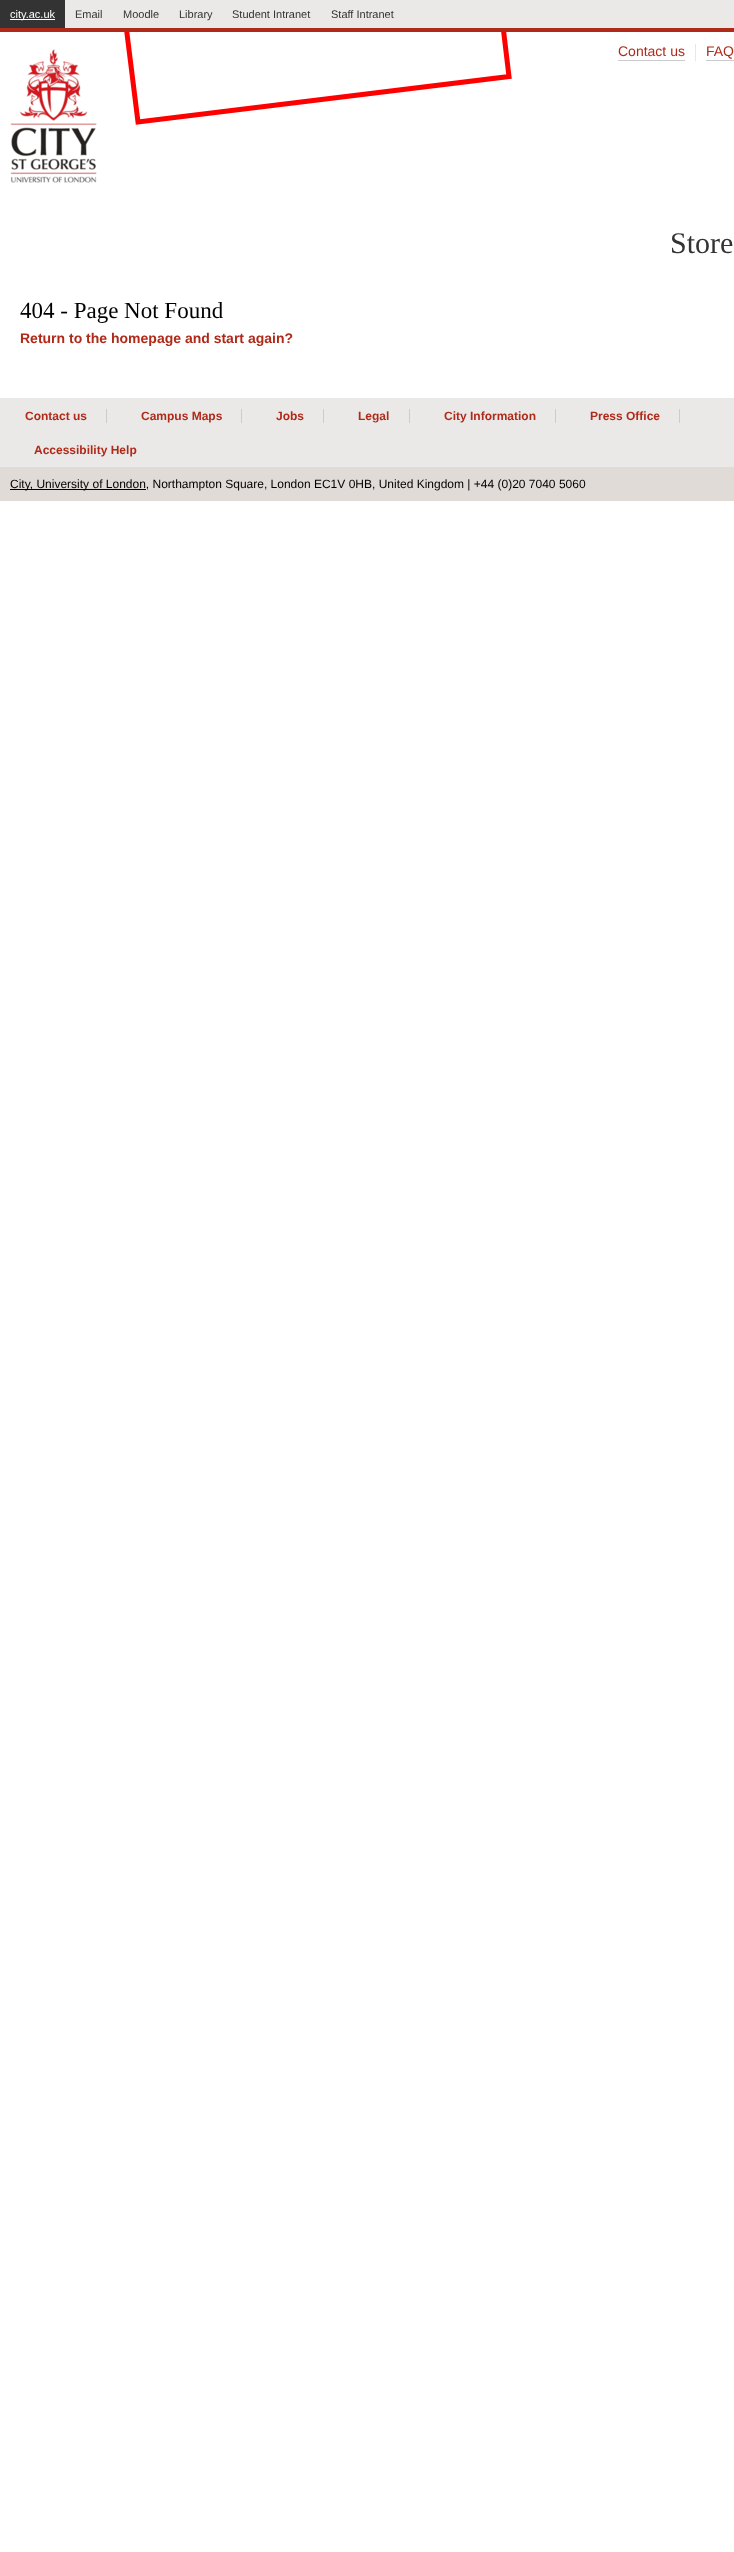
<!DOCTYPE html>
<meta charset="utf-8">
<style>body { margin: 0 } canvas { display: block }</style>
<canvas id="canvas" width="734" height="2552"></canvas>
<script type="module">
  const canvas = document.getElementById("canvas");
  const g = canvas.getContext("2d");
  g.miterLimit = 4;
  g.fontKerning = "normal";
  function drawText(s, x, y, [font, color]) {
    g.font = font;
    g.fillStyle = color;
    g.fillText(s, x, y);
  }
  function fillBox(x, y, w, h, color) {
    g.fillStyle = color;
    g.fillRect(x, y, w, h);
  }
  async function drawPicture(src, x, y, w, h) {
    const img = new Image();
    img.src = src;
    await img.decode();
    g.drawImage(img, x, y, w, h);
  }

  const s1 = ["11px Liberation Sans", "#FFFFFF"];
  const s2 = ["11px Liberation Sans", "#333333"];
  const s3 = ["14px Liberation Sans", "#B02A1A"];
  const s4 = ["30px Liberation Serif", "#333333"];
  const s5 = ["23px Liberation Serif", "#000000"];
  const s6 = ["bold 14px Liberation Sans", "#B02A1A"];
  const s7 = ["bold 12px Liberation Sans", "#B02A1A"];
  const s8 = ["12px Liberation Sans", "#000000"];

  fillBox(0, 0, 734, 2552, "#FFFFFF");
  g.beginPath();
  g.moveTo(126, 25.5);
  g.lineTo(497.5, -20);
  g.lineTo(509, 76.5);
  g.lineTo(138, 122);
  g.closePath();
  g.strokeStyle = "#FF0000";
  g.lineWidth = 5;
  g.stroke();
  fillBox(65, 0, 669, 28, "#EAE9E7");
  fillBox(0, 28, 734, 4, "#B02A1A");
  fillBox(0, 0, 65, 28, "#333333");
  fillBox(10, 19, 45, 1, "#FFFFFF");
  drawText("city.ac.uk", 10, 18, s1);
  drawText("Email", 75, 18, s2);
  drawText("Moodle", 123, 18, s2);
  drawText("Library", 179, 18, s2);
  drawText("Student Intranet", 232, 18, s2);
  drawText("Staff Intranet", 331, 18, s2);
  await drawPicture("pic1.png", 10, 49, 87, 134);
  fillBox(618, 60, 67, 1, "#CCCCCC");
  drawText("Contact us", 618, 56, s3);
  fillBox(695, 44, 1, 17, "#E7E7E7");
  fillBox(706, 60, 28, 1, "#CCCCCC");
  drawText("FAQ", 706, 56, s3);
  drawText("Store", 670, 253, s4);
  drawText("404 - Page Not Found", 20, 318, s5);
  drawText("Return to the homepage and start again?", 20, 343, s6);
  fillBox(0, 398, 734, 1, "#E7E7E7");
  fillBox(0, 399, 734, 68, "#EAE9E7");
  fillBox(106, 409, 1, 14, "#CCCCCC");
  drawText("Contact us", 25, 420, s7);
  fillBox(241, 409, 1, 14, "#CCCCCC");
  drawText("Campus Maps", 141, 420, s7);
  fillBox(323, 409, 1, 14, "#CCCCCC");
  drawText("Jobs", 276, 420, s7);
  fillBox(409, 409, 1, 14, "#CCCCCC");
  drawText("Legal", 358, 420, s7);
  fillBox(555, 409, 1, 14, "#CCCCCC");
  drawText("City Information", 444, 420, s7);
  fillBox(679, 409, 1, 14, "#CCCCCC");
  drawText("Press Office", 590, 420, s7);
  drawText("Accessibility Help", 34, 454, s7);
  fillBox(0, 467, 734, 34, "#E0DBD7");
  fillBox(10, 489, 136, 1, "#000000");
  drawText("City, University of London, Northampton Square, London EC1V 0HB, United Kingdom | +44 (0)20 7040 5060", 10, 488, s8);
</script>
